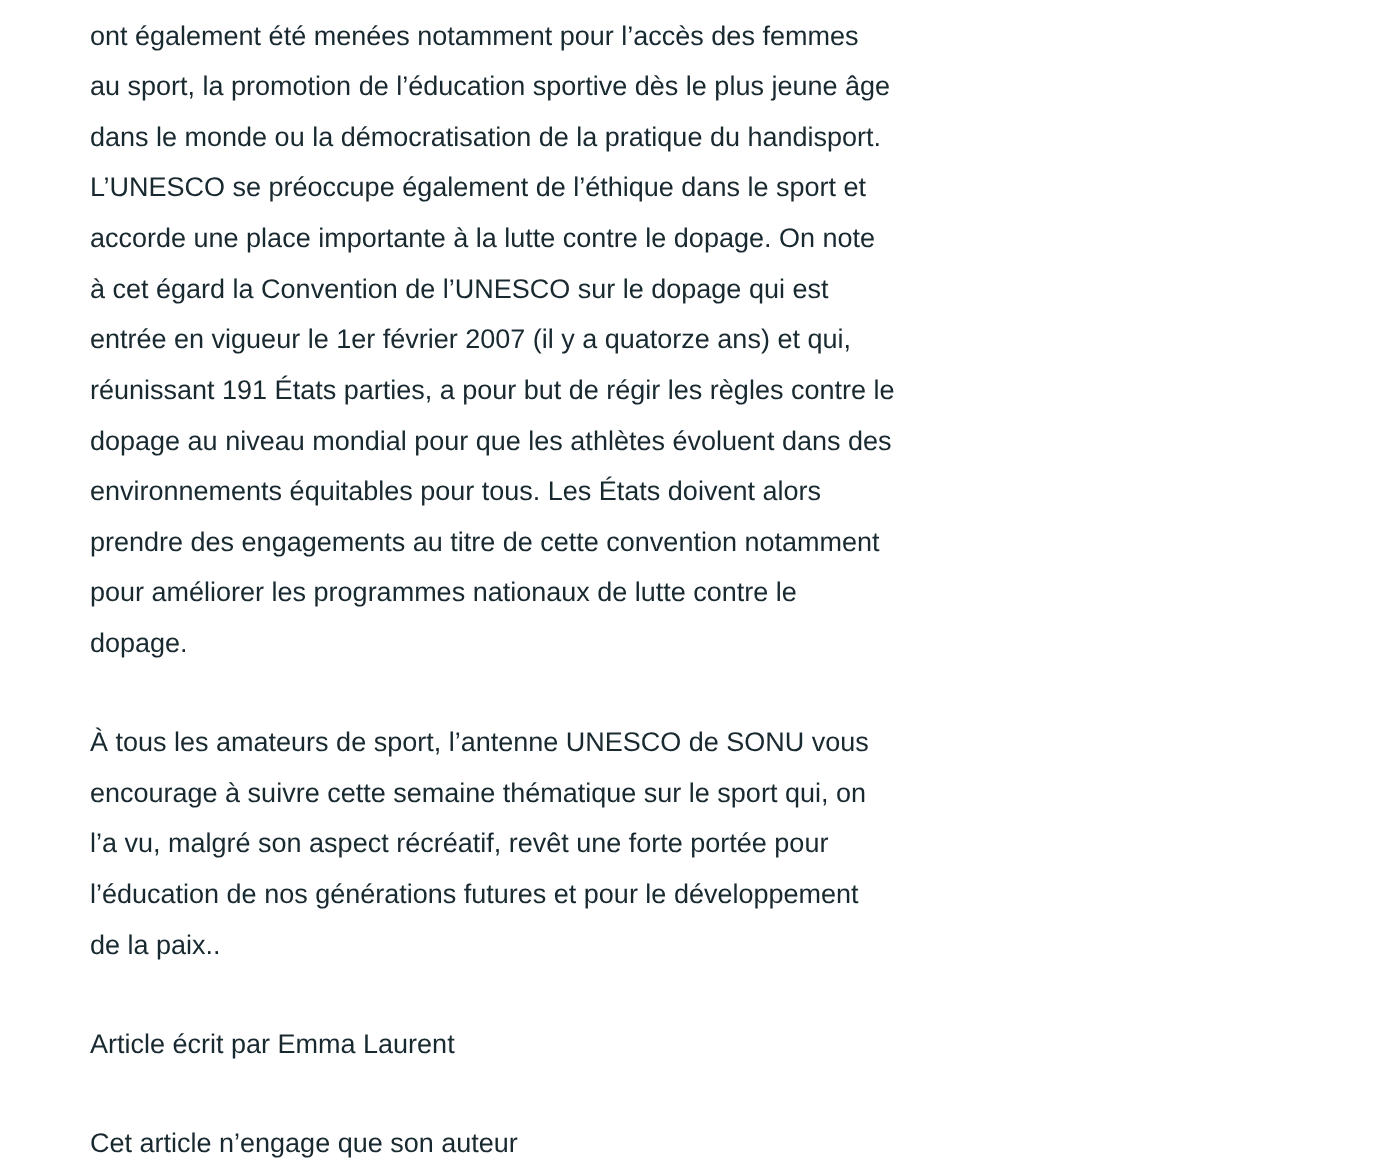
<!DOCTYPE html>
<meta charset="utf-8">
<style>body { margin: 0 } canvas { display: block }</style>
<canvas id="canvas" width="1399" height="1170"></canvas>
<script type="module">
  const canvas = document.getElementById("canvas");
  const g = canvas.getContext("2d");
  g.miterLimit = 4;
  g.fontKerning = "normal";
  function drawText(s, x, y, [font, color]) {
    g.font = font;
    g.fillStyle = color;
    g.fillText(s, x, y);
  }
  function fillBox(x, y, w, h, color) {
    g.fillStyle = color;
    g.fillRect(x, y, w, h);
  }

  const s1 = ["27px Liberation Sans", "#192930"];

  fillBox(0, 0, 1399, 1170, "#FFFFFF");
  drawText("ont également été menées notamment pour l’accès des femmes", 90, 45, s1);
  drawText("au sport, la promotion de l’éducation sportive dès le plus jeune âge", 90, 95, s1);
  drawText("dans le monde ou la démocratisation de la pratique du handisport.", 90, 146, s1);
  drawText("L’UNESCO se préoccupe également de l’éthique dans le sport et", 90, 196, s1);
  drawText("accorde une place importante à la lutte contre le dopage. On note", 90, 247, s1);
  drawText("à cet égard la Convention de l’UNESCO sur le dopage qui est", 90, 298, s1);
  drawText("entrée en vigueur le 1er février 2007 (il y a quatorze ans) et qui,", 90, 348, s1);
  drawText("réunissant 191 États parties, a pour but de régir les règles contre le", 90, 399, s1);
  drawText("dopage au niveau mondial pour que les athlètes évoluent dans des", 90, 450, s1);
  drawText("environnements équitables pour tous. Les États doivent alors", 90, 500, s1);
  drawText("prendre des engagements au titre de cette convention notamment", 90, 551, s1);
  drawText("pour améliorer les programmes nationaux de lutte contre le", 90, 601, s1);
  drawText("dopage.", 90, 652, s1);
  drawText("À tous les amateurs de sport, l’antenne UNESCO de SONU vous", 90, 751, s1);
  drawText("encourage à suivre cette semaine thématique sur le sport qui, on", 90, 802, s1);
  drawText("l’a vu, malgré son aspect récréatif, revêt une forte portée pour", 90, 852, s1);
  drawText("l’éducation de nos générations futures et pour le développement", 90, 903, s1);
  drawText("de la paix..", 90, 954, s1);
  drawText("Article écrit par Emma Laurent", 90, 1053, s1);
  drawText("Cet article n’engage que son auteur", 90, 1152, s1);
</script>
